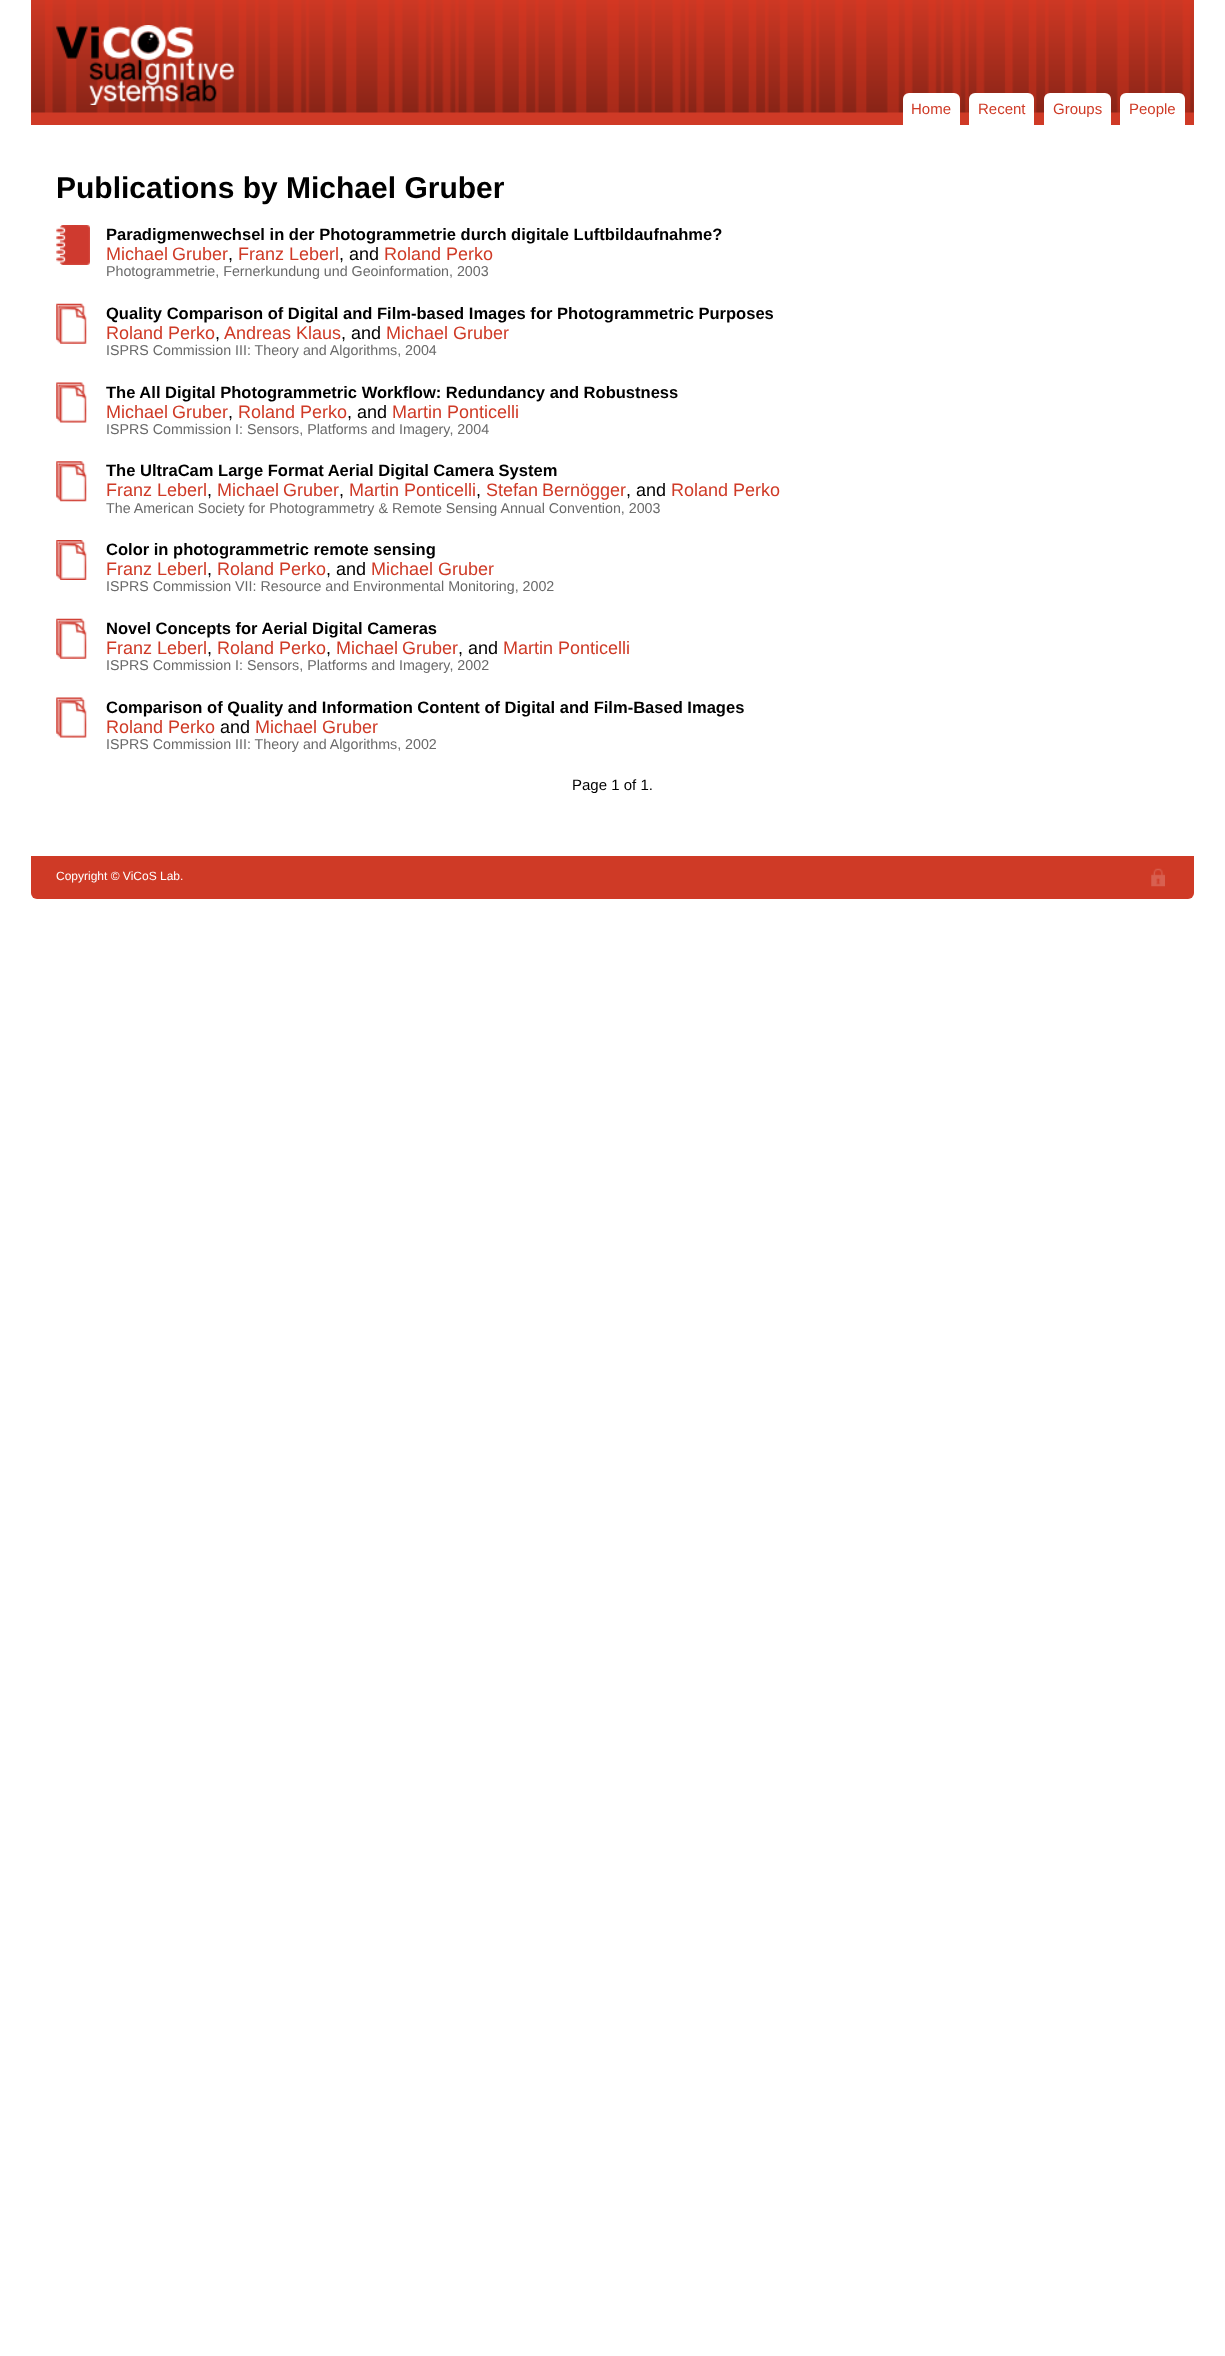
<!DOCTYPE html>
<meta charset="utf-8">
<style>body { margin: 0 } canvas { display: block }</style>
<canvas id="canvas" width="1225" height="2356"></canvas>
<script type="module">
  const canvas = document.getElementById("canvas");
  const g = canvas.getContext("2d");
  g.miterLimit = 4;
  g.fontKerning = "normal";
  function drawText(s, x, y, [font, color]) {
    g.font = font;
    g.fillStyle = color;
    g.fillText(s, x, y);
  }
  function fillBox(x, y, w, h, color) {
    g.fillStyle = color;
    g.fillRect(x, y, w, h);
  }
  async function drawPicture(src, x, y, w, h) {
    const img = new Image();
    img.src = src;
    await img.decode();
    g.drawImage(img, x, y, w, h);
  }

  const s1 = ["15px Liberation Sans", "#CF3A26"];
  const s2 = ["bold 30px Liberation Sans", "#000000"];
  const s3 = ["bold 16.55px Liberation Sans", "#000000"];
  const s4 = ["18px Liberation Sans", "#CF3A26"];
  const s5 = ["18px Liberation Sans", "#000000"];
  const s6 = ["14.25px Liberation Sans", "#6A6A6A"];
  const s7 = ["15px Liberation Sans", "#000000"];
  const s8 = ["12px Liberation Sans", "#FFFFFF"];

  fillBox(0, 0, 1225, 2356, "#FFFFFF");
  fillBox(31, 0, 1163, 125, "#CF3A26");
  await drawPicture("pic1.png", 31, 0, 1163, 113);
  await drawPicture("pic2.png", 56, 25, 178, 80);
  g.fillStyle = "#FFFFFF";
  g.beginPath();
  g.roundRect(903, 93, 57, 32, [6, 6, 0, 0]);
  g.fill();
  drawText("Home", 911, 114, s1);
  g.fillStyle = "#FFFFFF";
  g.beginPath();
  g.roundRect(969, 93, 65, 32, [6, 6, 0, 0]);
  g.fill();
  drawText("Recent", 978, 114, s1);
  g.fillStyle = "#FFFFFF";
  g.beginPath();
  g.roundRect(1044, 93, 67, 32, [6, 6, 0, 0]);
  g.fill();
  drawText("Groups", 1053, 114, s1);
  g.fillStyle = "#FFFFFF";
  g.beginPath();
  g.roundRect(1120, 93, 65, 32, [6, 6, 0, 0]);
  g.fill();
  drawText("People", 1129, 114, s1);
  drawText("Publications by Michael Gruber", 56, 198, s2);
  await drawPicture("pic3.png", 56, 225, 34, 40);
  drawText("Paradigmenwechsel in der Photogrammetrie durch digitale Luftbildaufnahme?", 106, 240, s3);
  g.wordSpacing = "-1px";
  drawText("Michael Gruber", 106, 260, s4);
  g.wordSpacing = "0px";
  drawText(",", 228, 260, s5);
  drawText("Franz Leberl", 238, 260, s4);
  drawText(", and", 339, 260, s5);
  drawText("Roland Perko", 384, 260, s4);
  drawText("Photogrammetrie, Fernerkundung und Geoinformation, 2003", 106, 276, s6);
  await drawPicture("pic4.png", 56, 303, 31, 41);
  drawText("Quality Comparison of Digital and Film-based Images for Photogrammetric Purposes", 106, 319, s3);
  drawText("Roland Perko", 106, 339, s4);
  drawText(",", 215, 339, s5);
  drawText("Andreas Klaus", 224, 339, s4);
  drawText(", and", 341, 339, s5);
  drawText("Michael Gruber", 386, 339, s4);
  drawText("ISPRS Commission III: Theory and Algorithms, 2004", 106, 355, s6);
  await drawPicture("pic5.png", 56, 382, 31, 41);
  drawText("The All Digital Photogrammetric Workflow: Redundancy and Robustness", 106, 398, s3);
  g.wordSpacing = "-1px";
  drawText("Michael Gruber", 106, 418, s4);
  g.wordSpacing = "0px";
  drawText(",", 228, 418, s5);
  drawText("Roland Perko", 238, 418, s4);
  drawText(", and", 347, 418, s5);
  drawText("Martin Ponticelli", 392, 418, s4);
  drawText("ISPRS Commission I: Sensors, Platforms and Imagery, 2004", 106, 434, s6);
  await drawPicture("pic6.png", 56, 461, 31, 41);
  drawText("The UltraCam Large Format Aerial Digital Camera System", 106, 476, s3);
  drawText("Franz Leberl", 106, 496, s4);
  drawText(",", 207, 496, s5);
  g.wordSpacing = "-1px";
  drawText("Michael Gruber", 217, 496, s4);
  g.wordSpacing = "0px";
  drawText(",", 339, 496, s5);
  drawText("Martin Ponticelli", 349, 496, s4);
  drawText(",", 476, 496, s5);
  g.wordSpacing = "-1px";
  drawText("Stefan Bernögger", 486, 496, s4);
  g.wordSpacing = "0px";
  drawText(", and", 626, 496, s5);
  drawText("Roland Perko", 671, 496, s4);
  drawText("The American Society for Photogrammetry & Remote Sensing Annual Convention, 2003", 106, 513, s6);
  await drawPicture("pic7.png", 56, 540, 31, 40);
  drawText("Color in photogrammetric remote sensing", 106, 555, s3);
  drawText("Franz Leberl", 106, 575, s4);
  drawText(",", 207, 575, s5);
  drawText("Roland Perko", 217, 575, s4);
  drawText(", and", 326, 575, s5);
  drawText("Michael Gruber", 371, 575, s4);
  drawText("ISPRS Commission VII: Resource and Environmental Monitoring, 2002", 106, 591, s6);
  await drawPicture("pic4.png", 56, 618, 31, 41);
  drawText("Novel Concepts for Aerial Digital Cameras", 106, 634, s3);
  drawText("Franz Leberl", 106, 654, s4);
  drawText(",", 207, 654, s5);
  drawText("Roland Perko", 217, 654, s4);
  drawText(",", 326, 654, s5);
  g.wordSpacing = "-1px";
  drawText("Michael Gruber", 336, 654, s4);
  g.wordSpacing = "0px";
  drawText(", and", 458, 654, s5);
  drawText("Martin Ponticelli", 503, 654, s4);
  drawText("ISPRS Commission I: Sensors, Platforms and Imagery, 2002", 106, 670, s6);
  await drawPicture("pic5.png", 56, 697, 31, 41);
  drawText("Comparison of Quality and Information Content of Digital and Film-Based Images", 106, 713, s3);
  drawText("Roland Perko", 106, 733, s4);
  drawText("and", 220, 733, s5);
  drawText("Michael Gruber", 255, 733, s4);
  drawText("ISPRS Commission III: Theory and Algorithms, 2002", 106, 749, s6);
  drawText("Page 1 of 1.", 572, 790, s7);
  g.fillStyle = "#CF3A26";
  g.beginPath();
  g.roundRect(31, 856, 1163, 43, [0, 0, 6, 6]);
  g.fill();
  drawText("Copyright © ViCoS Lab.", 56, 880, s8);
  await drawPicture("pic8.png", 1151, 868, 14, 19);
</script>
